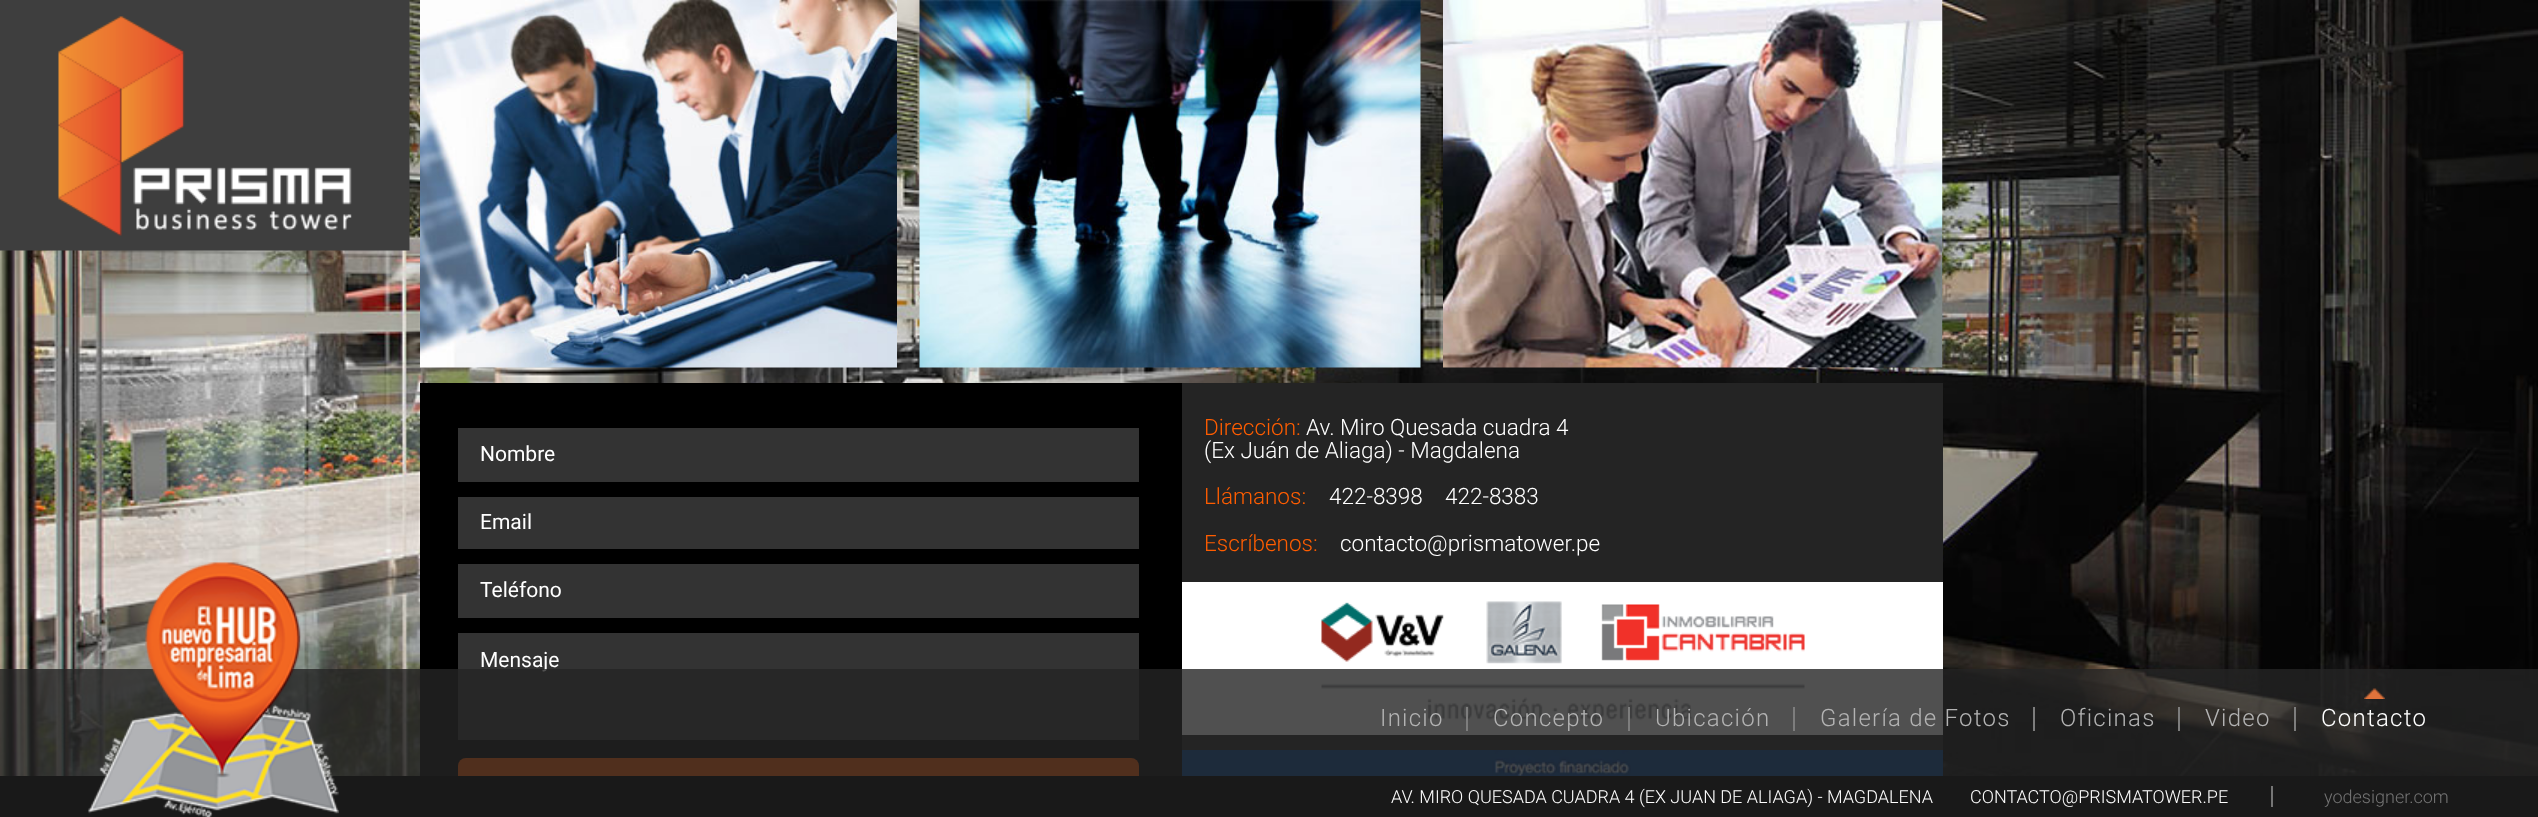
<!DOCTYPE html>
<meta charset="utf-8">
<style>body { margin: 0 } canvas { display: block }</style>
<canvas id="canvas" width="2538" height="817"></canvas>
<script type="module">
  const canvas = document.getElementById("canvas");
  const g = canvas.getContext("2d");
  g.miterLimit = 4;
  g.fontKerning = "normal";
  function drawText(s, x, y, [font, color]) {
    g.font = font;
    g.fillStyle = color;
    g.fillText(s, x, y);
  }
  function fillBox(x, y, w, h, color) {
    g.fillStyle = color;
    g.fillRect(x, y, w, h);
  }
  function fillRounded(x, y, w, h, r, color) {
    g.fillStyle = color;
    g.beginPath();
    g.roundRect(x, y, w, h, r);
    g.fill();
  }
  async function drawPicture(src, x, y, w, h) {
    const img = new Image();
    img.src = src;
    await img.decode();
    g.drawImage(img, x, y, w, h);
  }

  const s1 = ["21px Roboto", "#FFFFFF"];
  const s2 = ["300 22.5px Roboto", "#FF5D00"];
  const s3 = ["300 22.5px Roboto", "#FFFFFF"];
  const s4 = ["300 24px Roboto", "#B3B3B3"];
  const s5 = ["300 24px Roboto", "#FFFFFF"];
  const s6 = ["300 18px Roboto", "#FFFFFF"];
  const s7 = ["300 18px Roboto", "#757575"];

  fillBox(0, 0, 2538, 817, "#FFFFFF");
  await drawPicture("pic1.png", 0, 0, 2538, 776);
  await drawPicture("pic2.png", 0, 0, 410, 251);
  await drawPicture("pic3.png", 420, 0, 477, 368);
  await drawPicture("pic4.png", 919, 0, 502, 368);
  await drawPicture("pic5.png", 1443, 0, 500, 368);
  fillBox(420, 383, 762, 393, "#000000");
  fillBox(458, 428, 681, 54, "#333333");
  drawText("Nombre", 480, 461, s1);
  fillBox(458, 497, 681, 52, "#333333");
  drawText("Email", 480, 529, s1);
  fillBox(458, 564, 681, 54, "#333333");
  drawText("Teléfono", 480, 597, s1);
  fillBox(458, 633, 681, 107, "#333333");
  drawText("Mensaje", 480, 667, s1);
  fillRounded(458, 758, 681, 55, 8, "#FF5D00");
  fillBox(1182, 383, 761, 367, "#242424");
  drawText("Dirección:", 1204, 435, s2);
  drawText("Av. Miro Quesada cuadra 4", 1306, 435, s3);
  drawText("(Ex Juán de Aliaga) - Magdalena", 1204, 458, s3);
  drawText("Llámanos:", 1204, 504, s2);
  drawText("422-8398", 1329, 504, s3);
  drawText("422-8383", 1445, 504, s3);
  drawText("Escríbenos:", 1204, 551, s2);
  drawText("contacto@prismatower.pe", 1340, 551, s3);
  fillBox(1182, 582, 761, 153, "#FFFFFF");
  await drawPicture("pic6.png", 1321, 601, 484, 123);
  fillBox(1182, 750, 761, 26, "#004696");
  await drawPicture("pic7.png", 1492, 750, 139, 26);
  fillBox(0, 669, 2538, 107, "rgba(36, 36, 36, 0.8)");
  fillBox(0, 776, 2538, 41, "#191919");
  await drawPicture("pic8.png", 88, 562, 251, 255);
  fillBox(1466, 707, 2, 24, "#7D7D7D");
  g.letterSpacing = "1.25px";
  drawText("Inicio", 1380, 726, s4);
  fillBox(1628, 707, 2, 24, "#7D7D7D");
  drawText("Concepto", 1493, 726, s4);
  fillBox(1793, 707, 2, 24, "#7D7D7D");
  drawText("Ubicación", 1655, 726, s4);
  fillBox(2033, 707, 2, 24, "#7D7D7D");
  drawText("Galería de Fotos", 1820, 726, s4);
  fillBox(2178, 707, 2, 24, "#7D7D7D");
  drawText("Oficinas", 2060, 726, s4);
  fillBox(2294, 707, 2, 24, "#7D7D7D");
  drawText("Video", 2205, 726, s4);
  await drawPicture("pic9.png", 2364, 688, 21, 11);
  drawText("Contacto", 2321, 726, s5);
  g.letterSpacing = "0px";
  drawText("AV. MIRO QUESADA CUADRA 4 (EX JUAN DE ALIAGA) - MAGDALENA", 1391, 803, s6);
  drawText("CONTACTO@PRISMATOWER.PE", 1970, 803, s6);
  drawText("yodesigner.com", 2324, 803, s7);
  fillBox(2271, 786, 2, 21, "#757575");
</script>
